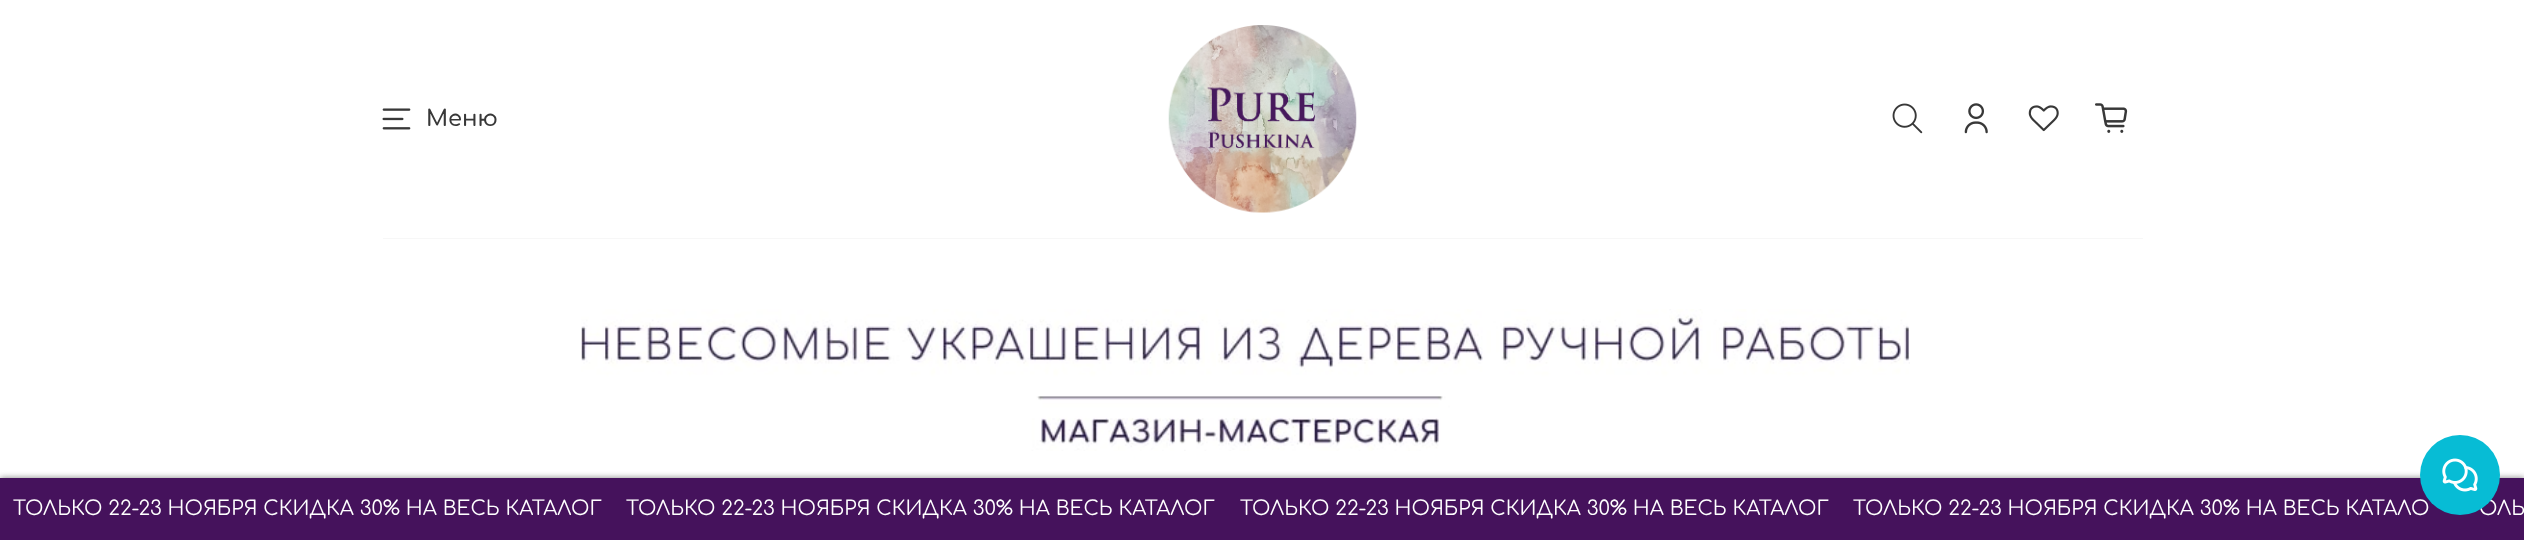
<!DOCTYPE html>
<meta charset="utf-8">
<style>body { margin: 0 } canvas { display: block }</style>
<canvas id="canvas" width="2524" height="540"></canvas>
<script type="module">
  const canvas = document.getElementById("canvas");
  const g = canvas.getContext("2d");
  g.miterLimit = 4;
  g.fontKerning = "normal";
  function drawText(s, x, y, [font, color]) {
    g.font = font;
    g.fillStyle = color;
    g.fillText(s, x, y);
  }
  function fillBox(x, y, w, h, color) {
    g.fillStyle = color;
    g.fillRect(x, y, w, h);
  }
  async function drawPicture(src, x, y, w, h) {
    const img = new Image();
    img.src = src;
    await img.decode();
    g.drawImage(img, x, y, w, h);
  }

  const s1 = ["600 22.5px Comfortaa", "#383838"];
  const s2 = ["20px Comfortaa", "#FFFFFF"];

  fillBox(0, 0, 2524, 540, "#FFFFFF");
  await drawPicture("pic1.png", 382, 108, 29, 22);
  drawText("Меню", 426, 126, s1);
  await drawPicture("pic2.png", 1168, 25, 189, 188);
  await drawPicture("pic3.png", 1892, 103, 31, 31);
  await drawPicture("pic4.png", 1964, 103, 24, 31);
  await drawPicture("pic5.png", 2028, 105, 31, 27);
  await drawPicture("pic6.png", 2095, 103, 33, 30);
  fillBox(383, 238, 1760, 1, "#F7F7F7");
  await drawPicture("pic7.png", 581, 309, 1329, 142);
  g.fillStyle = "#808080";
  g.filter = "blur(3px)";
  g.beginPath();
  g.rect(0, 478, 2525, 62);
  g.fill();
  g.filter = "none";
  fillBox(0, 478, 2524, 62, "#45125C");
  drawText("ТОЛЬКО 22-23 НОЯБРЯ СКИДКА 30% НА ВЕСЬ КАТАЛОГ", 13, 515, s2);
  drawText("ТОЛЬКО 22-23 НОЯБРЯ СКИДКА 30% НА ВЕСЬ КАТАЛОГ", 626, 515, s2);
  drawText("ТОЛЬКО 22-23 НОЯБРЯ СКИДКА 30% НА ВЕСЬ КАТАЛОГ", 1240, 515, s2);
  drawText("ТОЛЬКО 22-23 НОЯБРЯ СКИДКА 30% НА ВЕСЬ КАТАЛО", 1853, 515, s2);
  drawText("ОЛЬ", 2479, 515, s2);
  g.fillStyle = "#07BCD5";
  g.beginPath();
  g.arc(2460, 475, 40, 0, Math.PI * 2);
  g.fill();
  await drawPicture("pic8.png", 2442, 458, 36, 34);
</script>
